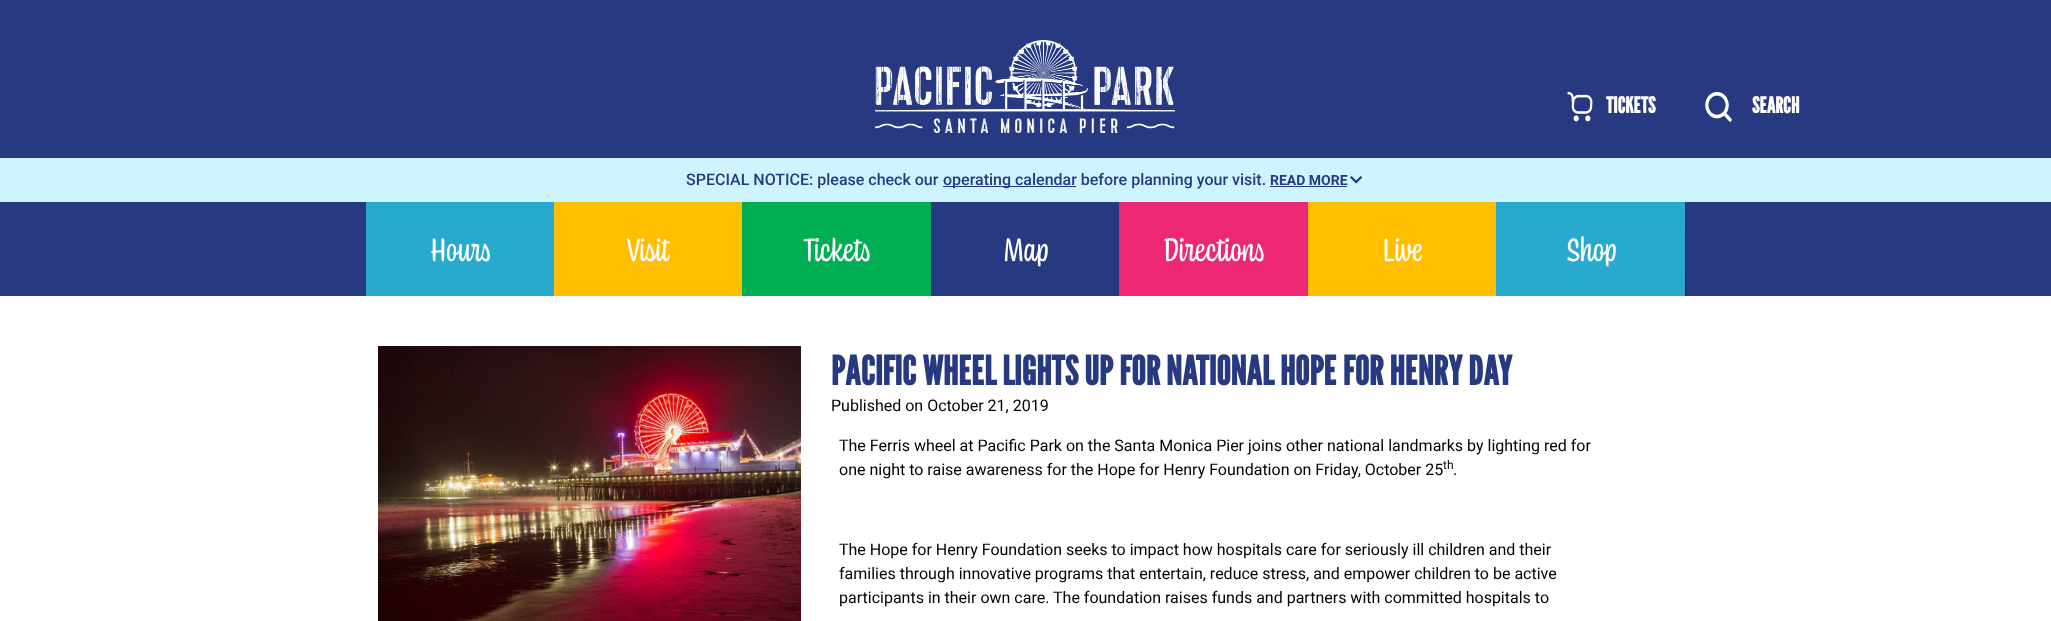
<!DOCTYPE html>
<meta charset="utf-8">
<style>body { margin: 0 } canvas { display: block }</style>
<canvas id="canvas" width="2051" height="621"></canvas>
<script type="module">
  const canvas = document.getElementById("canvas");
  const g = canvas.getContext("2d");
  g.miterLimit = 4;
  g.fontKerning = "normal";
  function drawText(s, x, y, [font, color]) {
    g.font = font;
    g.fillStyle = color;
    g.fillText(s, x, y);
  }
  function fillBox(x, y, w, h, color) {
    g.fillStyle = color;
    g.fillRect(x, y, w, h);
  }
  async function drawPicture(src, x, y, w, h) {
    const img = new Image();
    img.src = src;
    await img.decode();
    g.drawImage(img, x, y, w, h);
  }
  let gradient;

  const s1 = ["bold 22px League Gothic", "#FFFFFF"];
  const s2 = ["500 16px Roboto", "#273980"];
  const s3 = ["bold 14px Roboto", "#273980"];
  const s4 = ["34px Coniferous", "#FFFFFF"];
  const s5 = ["bold 40px League Gothic", "#273980"];
  const s6 = ["16px Roboto", "#000000"];
  const s7 = ["12px Roboto", "#000000"];

  fillBox(0, 0, 2051, 621, "#FFFFFF");
  fillBox(0, 0, 2051, 296, "#273980");
  await drawPicture("pic1.png", 875, 40, 300, 93);
  await drawPicture("pic2.png", 1567, 91, 26, 31);
  drawText("TICKETS", 1606, 113, s1);
  await drawPicture("pic3.png", 1705, 92, 27, 30);
  drawText("SEARCH", 1752, 113, s1);
  fillBox(0, 158, 2051, 44, "#CEF5FF");
  drawText("SPECIAL NOTICE: please check our", 686, 185, s2);
  fillBox(943, 186, 133, 1, "#273980");
  drawText("operating calendar before planning your visit.", 943, 185, s2);
  drawText("READ MORE", 1270, 185, s3);
  fillBox(1270, 186, 77, 1, "#273980");
  await drawPicture("pic4.png", 1350, 176, 12, 8);
  gradient = g.createLinearGradient(1026, 202, 1026, 296);
  gradient.addColorStop(0, "#273980");
  gradient.addColorStop(1, "#222222");
  g.fillStyle = gradient;
  g.fillRect(1685, 202, 1, 94);
  fillBox(366, 202, 188, 94, "#27AACD");
  drawText("Hours", 430, 261, s4);
  fillBox(554, 202, 188, 94, "#FFBE00");
  drawText("Visit", 626, 261, s4);
  fillBox(742, 202, 189, 94, "#00AF54");
  drawText("Tickets", 803, 261, s4);
  drawText("Map", 1003, 261, s4);
  fillBox(1119, 202, 189, 94, "#ED2774");
  drawText("Directions", 1163, 261, s4);
  fillBox(1308, 202, 188, 94, "#FFBE00");
  drawText("Live", 1382, 261, s4);
  fillBox(1496, 202, 189, 94, "#27AACD");
  drawText("Shop", 1566, 261, s4);
  await drawPicture("pic5.png", 378, 346, 423, 275);
  drawText("PACIFIC WHEEL LIGHTS UP FOR NATIONAL HOPE FOR HENRY DAY", 831, 385, s5);
  drawText("Published on October 21, 2019", 831, 411, s6);
  drawText("The Ferris wheel at Pacific Park on the Santa Monica Pier joins other national landmarks by lighting red for", 839, 451, s6);
  drawText("one night to raise awareness for the Hope for Henry Foundation on Friday, October 25", 839, 475, s6);
  drawText("th", 1443, 469, s7);
  drawText(".", 1453, 475, s6);
  drawText("The Hope for Henry Foundation seeks to impact how hospitals care for seriously ill children and their", 839, 555, s6);
  drawText("families through innovative programs that entertain, reduce stress, and empower children to be active", 839, 579, s6);
  drawText("participants in their own care. The foundation raises funds and partners with committed hospitals to", 839, 603, s6);
</script>
